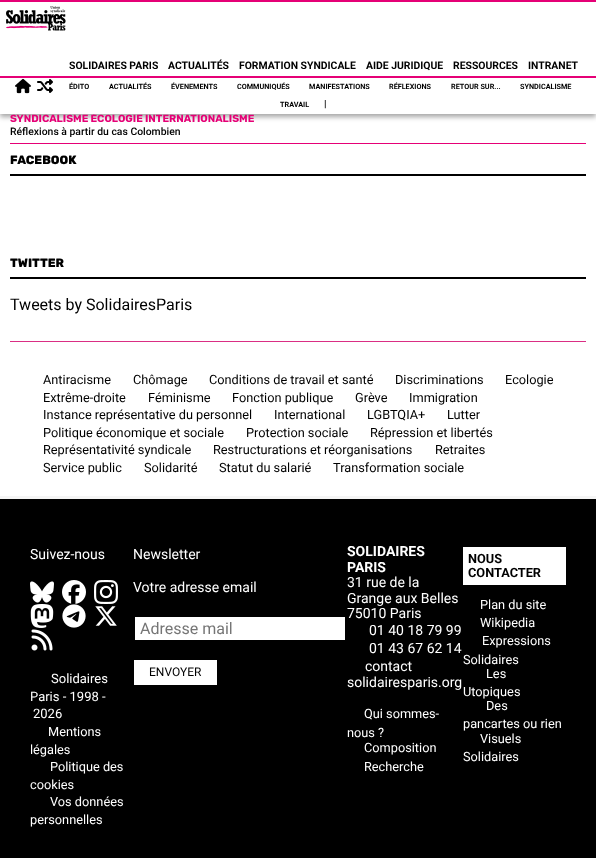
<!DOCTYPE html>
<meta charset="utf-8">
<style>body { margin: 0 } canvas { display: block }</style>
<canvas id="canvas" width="596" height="858"></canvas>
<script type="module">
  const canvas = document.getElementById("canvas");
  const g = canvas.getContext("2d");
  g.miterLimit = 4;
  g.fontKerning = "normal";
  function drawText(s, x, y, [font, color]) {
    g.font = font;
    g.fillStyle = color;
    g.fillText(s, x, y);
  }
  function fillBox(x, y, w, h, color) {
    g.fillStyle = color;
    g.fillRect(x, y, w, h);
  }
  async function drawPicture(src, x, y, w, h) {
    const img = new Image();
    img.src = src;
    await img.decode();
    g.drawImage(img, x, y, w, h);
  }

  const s1 = ["bold 10.4px Rubik", "#E50076"];
  const s2 = ["bold 10.4px Roboto", "#000000"];
  const s3 = ["bold 7.25px Roboto", "#000000"];
  const s4 = ["bold 10px Roboto", "#000000"];
  const s5 = ["500 10.4px Roboto", "#000000"];
  const s6 = ["800 12px Rubik", "#000000"];
  const s7 = ["16px Roboto", "#000000"];
  const s8 = ["12.75px Roboto", "#000000"];
  const s9 = ["14px Roboto", "#FFFFFF"];
  const s10 = ["13px Roboto", "#FFFFFF"];
  const s11 = ["12.75px Roboto", "#FFFFFF"];
  const s12 = ["16px Roboto", "#757575"];
  const s13 = ["12px Roboto", "#000000"];
  const s14 = ["bold 14px Roboto", "#FFFFFF"];
  const s15 = ["bold 12.75px Roboto", "#000000"];

  fillBox(0, 0, 596, 858, "#F5F5F5");
  fillBox(0, 114, 596, 382, "#FFFFFF");
  g.fillStyle = "rgba(0, 0, 0, 0.35)";
  g.filter = "blur(2.5px)";
  g.beginPath();
  g.rect(0, 3, 596, 114);
  g.fill();
  g.filter = "none";
  drawText("SYNDICALISME ÉCOLOGIE INTERNATIONALISME", 10, 122, s1);
  fillBox(0, 2, 596, 112, "#FFFFFF");
  fillBox(0, 0, 596, 2, "#E50076");
  await drawPicture("pic1.png", 6, 6, 60, 25);
  drawText("SOLIDAIRES PARIS", 69, 69, s2);
  drawText("ACTUALITÉS", 168, 69, s2);
  drawText("FORMATION SYNDICALE", 239, 69, s2);
  drawText("AIDE JURIDIQUE", 366, 69, s2);
  drawText("RESSOURCES", 453, 69, s2);
  drawText("INTRANET", 528, 69, s2);
  fillBox(0, 76, 596, 2, "#E50076");
  await drawPicture("pic2.png", 15, 78, 16, 16);
  await drawPicture("pic3.png", 37, 79, 16, 14);
  drawText("ÉDITO", 69, 89, s3);
  drawText("ACTUALITÉS", 109, 89, s3);
  drawText("ÉVENEMENTS", 171, 89, s3);
  drawText("COMMUNIQUÉS", 237, 89, s3);
  drawText("MANIFESTATIONS", 309, 89, s3);
  drawText("RÉFLEXIONS", 389, 89, s3);
  drawText("RETOUR SUR...", 451, 89, s3);
  drawText("SYNDICALISME", 520, 89, s3);
  drawText("TRAVAIL", 280, 107, s3);
  drawText("|", 324, 107, s4);
  fillBox(10, 143, 576, 1, "#E50076");
  drawText("Réflexions à partir du cas Colombien", 10, 135, s5);
  fillBox(10, 174, 576, 2, "#000000");
  drawText("FACEBOOK", 10, 164, s6);
  fillBox(10, 277, 576, 2, "#000000");
  drawText("TWITTER", 10, 267, s6);
  drawText("Tweets by SolidairesParis", 10, 310, s7);
  fillBox(10, 341, 576, 1, "#DA2E84");
  drawText("Antiracisme", 43, 384, s8);
  drawText("Chômage", 133, 384, s8);
  drawText("Conditions de travail et santé", 209, 384, s8);
  drawText("Discriminations", 395, 384, s8);
  drawText("Ecologie", 505, 384, s8);
  drawText("Extrême-droite", 43, 402, s8);
  drawText("Féminisme", 148, 402, s8);
  drawText("Fonction publique", 232, 402, s8);
  drawText("Grève", 355, 402, s8);
  drawText("Immigration", 409, 402, s8);
  drawText("Instance représentative du personnel", 43, 419, s8);
  drawText("International", 274, 419, s8);
  drawText("LGBTQIA+", 367, 419, s8);
  drawText("Lutter", 447, 419, s8);
  drawText("Politique économique et sociale", 43, 437, s8);
  drawText("Protection sociale", 246, 437, s8);
  drawText("Répression et libertés", 370, 437, s8);
  drawText("Représentativité syndicale", 43, 454, s8);
  drawText("Restructurations et réorganisations", 213, 454, s8);
  drawText("Retraites", 435, 454, s8);
  drawText("Service public", 43, 472, s8);
  drawText("Solidarité", 144, 472, s8);
  drawText("Statut du salarié", 219, 472, s8);
  drawText("Transformation sociale", 333, 472, s8);
  fillBox(0, 499, 596, 359, "#000000");
  drawText("Suivez-nous", 30, 559, s9);
  await drawPicture("pic4.png", 30, 581, 24, 22);
  await drawPicture("pic5.png", 62, 580, 24, 24);
  await drawPicture("pic6.png", 94, 580, 24, 24);
  await drawPicture("pic7.png", 30, 604, 24, 24);
  await drawPicture("pic8.png", 62, 604, 24, 24);
  await drawPicture("pic9.png", 95, 606, 22, 20);
  await drawPicture("pic10.png", 31, 629, 22, 22);
  drawText("Solidaires", 51, 683, s10);
  drawText("Paris - 1998 -", 30, 701, s10);
  drawText("2026", 33, 718, s10);
  drawText("Mentions", 48, 736, s11);
  drawText("légales", 30, 754, s11);
  drawText("Politique des", 50, 771, s11);
  drawText("cookies", 30, 789, s11);
  drawText("Vos données", 50, 806, s11);
  drawText("personnelles", 30, 824, s11);
  drawText("Newsletter", 133, 559, s9);
  drawText("Votre adresse email", 133, 592, s9);
  fillBox(135, 617, 210, 23, "#FFFFFF");
  drawText("Adresse mail", 140, 634, s12);
  fillBox(134, 660, 83, 25, "#FFFFFF");
  drawText("ENVOYER", 149, 676, s13);
  drawText("SOLIDAIRES", 347, 556, s14);
  drawText("PARIS", 347, 572, s14);
  drawText("31 rue de la", 347, 587, s9);
  drawText("Grange aux Belles", 347, 603, s9);
  drawText("75010 Paris", 347, 618, s9);
  drawText("01 40 18 79 99", 369, 635, s9);
  drawText("01 43 67 62 14", 369, 653, s9);
  drawText("contact", 365, 671, s9);
  drawText("solidairesparis.org", 347, 687, s9);
  drawText("Qui sommes-", 364, 718, s11);
  drawText("nous ?", 347, 737, s11);
  drawText("Composition", 364, 752, s11);
  drawText("Recherche", 364, 771, s11);
  fillBox(463, 547, 103, 38, "#FFFFFF");
  drawText("NOUS", 468, 563, s15);
  drawText("CONTACTER", 468, 577, s15);
  drawText("Plan du site", 480, 609, s11);
  drawText("Wikipedia", 480, 627, s11);
  drawText("Expressions", 482, 645, s11);
  drawText("Solidaires", 463, 664, s11);
  drawText("Les", 486, 678, s11);
  drawText("Utopiques", 463, 696, s11);
  drawText("Des", 486, 710, s11);
  drawText("pancartes ou rien", 463, 728, s11);
  drawText("Visuels", 480, 743, s11);
  drawText("Solidaires", 463, 761, s11);
</script>
